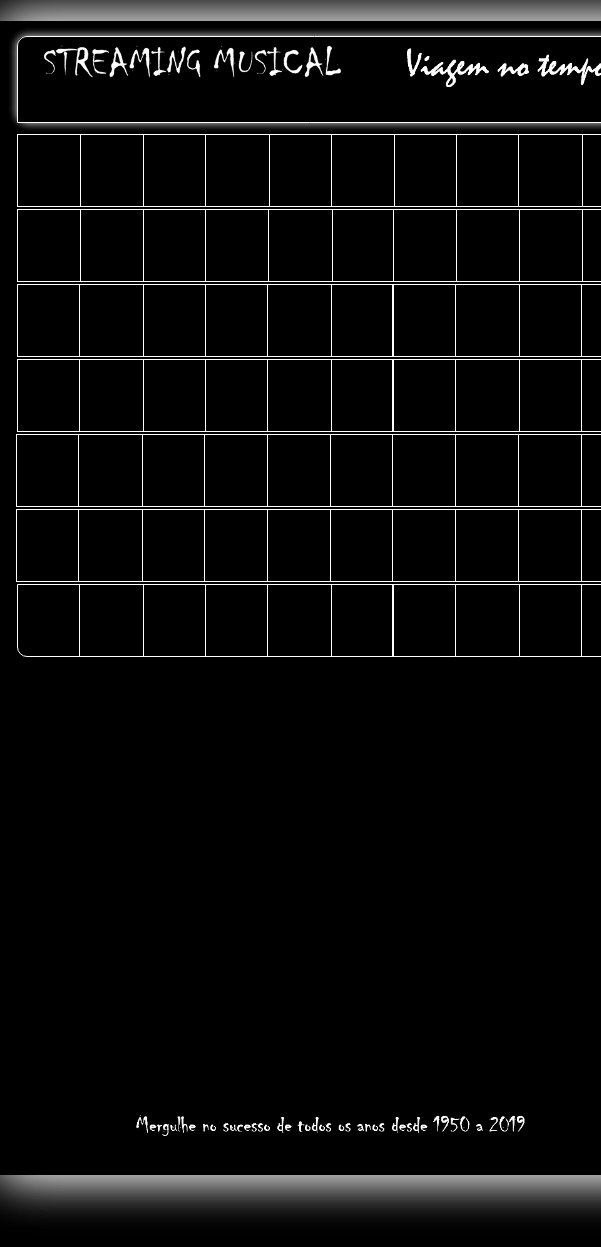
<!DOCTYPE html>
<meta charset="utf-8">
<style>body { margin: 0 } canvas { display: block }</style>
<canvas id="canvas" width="601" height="1247"></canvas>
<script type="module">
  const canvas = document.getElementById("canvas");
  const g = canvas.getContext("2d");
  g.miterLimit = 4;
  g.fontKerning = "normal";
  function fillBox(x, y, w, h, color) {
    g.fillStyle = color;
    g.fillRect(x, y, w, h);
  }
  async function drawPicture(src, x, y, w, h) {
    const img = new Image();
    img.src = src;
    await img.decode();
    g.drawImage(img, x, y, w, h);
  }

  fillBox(0, 0, 601, 1247, "#000000");
  g.fillStyle = "rgba(255, 255, 255, 0.8)";
  g.filter = "blur(25px)";
  g.beginPath();
  g.roundRect(0, 21, 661, 1154, 10);
  g.fill();
  g.filter = "none";
  g.filter = "blur(25px)";
  g.beginPath();
  g.roundRect(0, 21, 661, 1154, 10);
  g.fill();
  g.filter = "none";
  fillBox(30, 51, 571, 1094, "#000000");
  g.beginPath();
  g.moveTo(15, 36);
  g.lineTo(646, 36);
  g.lineTo(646, 1160);
  g.lineTo(15, 1160);
  g.closePath();
  g.strokeStyle = "#000000";
  g.lineWidth = 30;
  g.stroke();
  await drawPicture("pic1.png", 44, 45, 298, 33);
  await drawPicture("pic2.png", 407, 48, 194, 39);
  g.strokeStyle = "#FFFFFF";
  g.lineWidth = 1;
  g.strokeRect(17.5, 134.5, 64, 72);
  fillBox(81, 135, 1, 71, "#000000");
  g.strokeRect(80.5, 134.5, 64, 72);
  fillBox(144, 135, 1, 71, "#000000");
  g.strokeRect(143.5, 134.5, 63, 72);
  fillBox(206, 135, 1, 71, "#000000");
  g.strokeRect(205.5, 134.5, 64, 72);
  g.strokeRect(269.5, 134.5, 64, 72);
  fillBox(333, 135, 1, 71, "#000000");
  g.strokeRect(331.5, 134.5, 63, 72);
  g.strokeRect(394.5, 134.5, 64, 72);
  fillBox(458, 135, 1, 71, "#000000");
  g.strokeRect(456.5, 134.5, 63, 72);
  g.strokeRect(581.5, 134.5, 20, 72);
  g.beginPath();
  g.rect(518.5, 134.5, 64, 72);
  g.fill();
  g.stroke();
  g.save();
  g.beginPath();
  g.moveTo(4, 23);
  g.lineTo(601, 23);
  g.lineTo(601, 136);
  g.lineTo(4, 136);
  g.closePath();
  g.moveTo(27, 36);
  g.lineTo(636, 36);
  g.bezierCurveTo(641.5, 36, 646, 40.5, 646, 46);
  g.lineTo(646, 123);
  g.lineTo(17, 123);
  g.lineTo(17, 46);
  g.bezierCurveTo(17, 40.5, 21.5, 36, 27, 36);
  g.closePath();
  g.clip("evenodd");
  g.fillStyle = "rgba(255, 255, 255, 0.5)";
  g.filter = "blur(4px)";
  g.beginPath();
  g.roundRect(17, 36, 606, 87, 10);
  g.fill();
  g.filter = "none";
  g.filter = "blur(4px)";
  g.beginPath();
  g.roundRect(17, 36, 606, 87, 10);
  g.fill();
  g.filter = "none";
  g.restore();
  g.beginPath();
  g.moveTo(27, 36.5);
  g.lineTo(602, 36.5);
  g.bezierCurveTo(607, 36.5, 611.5, 41, 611.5, 46);
  g.lineTo(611.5, 122.5);
  g.lineTo(17.5, 122.5);
  g.lineTo(17.5, 46);
  g.bezierCurveTo(17.5, 41, 22, 36.5, 27, 36.5);
  g.closePath();
  g.stroke();
  g.strokeRect(17.5, 209.5, 64, 72);
  fillBox(81, 210, 1, 71, "#000000");
  g.strokeRect(80.5, 209.5, 63, 72);
  g.strokeRect(143.5, 209.5, 64, 72);
  fillBox(207, 210, 1, 71, "#000000");
  g.strokeRect(205.5, 209.5, 64, 72);
  g.strokeRect(393.5, 209.5, 64, 72);
  g.strokeRect(329.5, 209.5, 64, 72);
  fillBox(269, 210, 61, 71, "#000000");
  g.strokeRect(268.5, 209.5, 64, 72);
  g.strokeRect(582.5, 209.5, 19, 72);
  g.strokeRect(518.5, 209.5, 64, 72);
  g.beginPath();
  g.rect(456.5, 209.5, 63, 72);
  g.fill();
  g.stroke();
  g.strokeRect(17.5, 284.5, 64, 72);
  fillBox(81, 285, 1, 71, "#000000");
  g.strokeRect(79.5, 284.5, 64, 72);
  g.strokeRect(143.5, 284.5, 63, 72);
  fillBox(206, 285, 1, 71, "#000000");
  g.strokeRect(205.5, 284.5, 63, 72);
  g.strokeRect(329.5, 284.5, 63, 72);
  fillBox(268, 285, 62, 71, "#000000");
  g.strokeRect(267.5, 284.5, 64, 72);
  g.strokeRect(393.5, 284.5, 63, 72);
  g.strokeRect(581.5, 284.5, 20, 72);
  g.strokeRect(518.5, 284.5, 63, 72);
  g.beginPath();
  g.rect(455.5, 284.5, 64, 72);
  g.fill();
  g.stroke();
  g.strokeRect(17.5, 359.5, 64, 72);
  fillBox(81, 360, 1, 71, "#000000");
  g.strokeRect(79.5, 359.5, 64, 72);
  g.strokeRect(143.5, 359.5, 63, 72);
  fillBox(206, 360, 1, 71, "#000000");
  g.strokeRect(205.5, 359.5, 63, 72);
  g.strokeRect(329.5, 359.5, 63, 72);
  fillBox(268, 360, 62, 71, "#000000");
  g.strokeRect(267.5, 359.5, 64, 72);
  g.strokeRect(393.5, 359.5, 63, 72);
  g.strokeRect(581.5, 359.5, 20, 72);
  g.strokeRect(518.5, 359.5, 63, 72);
  g.beginPath();
  g.rect(455.5, 359.5, 64, 72);
  g.fill();
  g.stroke();
  g.strokeRect(16.5, 434.5, 64, 72);
  fillBox(80, 435, 1, 71, "#000000");
  g.strokeRect(78.5, 434.5, 64, 72);
  g.strokeRect(142.5, 434.5, 64, 72);
  fillBox(206, 435, 1, 71, "#000000");
  g.strokeRect(204.5, 434.5, 64, 72);
  g.strokeRect(392.5, 434.5, 64, 72);
  g.strokeRect(328.5, 434.5, 64, 72);
  fillBox(268, 435, 61, 71, "#000000");
  g.strokeRect(267.5, 434.5, 63, 72);
  g.strokeRect(580.5, 434.5, 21, 72);
  fillBox(580, 435, 1, 71, "#000000");
  g.strokeRect(517.5, 434.5, 64, 72);
  g.beginPath();
  g.rect(455.5, 434.5, 63, 72);
  g.fill();
  g.stroke();
  g.strokeRect(16.5, 509.5, 64, 72);
  fillBox(80, 510, 1, 71, "#000000");
  g.strokeRect(78.5, 509.5, 64, 72);
  g.strokeRect(142.5, 509.5, 64, 72);
  fillBox(206, 510, 1, 71, "#000000");
  g.strokeRect(204.5, 509.5, 64, 72);
  g.strokeRect(392.5, 509.5, 64, 72);
  g.strokeRect(328.5, 509.5, 64, 72);
  fillBox(268, 510, 61, 71, "#000000");
  g.strokeRect(267.5, 509.5, 63, 72);
  g.strokeRect(580.5, 509.5, 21, 72);
  fillBox(580, 510, 1, 71, "#000000");
  g.strokeRect(517.5, 509.5, 64, 72);
  g.beginPath();
  g.rect(455.5, 509.5, 63, 72);
  g.fill();
  g.stroke();
  g.beginPath();
  g.roundRect(17.5, 584.5, 64, 72, [0, 0, 0, 9.5]);
  g.stroke();
  fillBox(81, 585, 1, 71, "#000000");
  g.strokeRect(79.5, 584.5, 64, 72);
  g.strokeRect(143.5, 584.5, 63, 72);
  fillBox(206, 585, 1, 71, "#000000");
  g.strokeRect(205.5, 584.5, 63, 72);
  g.strokeRect(329.5, 584.5, 63, 72);
  fillBox(268, 585, 62, 71, "#000000");
  g.strokeRect(267.5, 584.5, 64, 72);
  g.strokeRect(393.5, 584.5, 63, 72);
  g.strokeRect(581.5, 584.5, 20, 72);
  g.strokeRect(518.5, 584.5, 63, 72);
  g.beginPath();
  g.rect(455.5, 584.5, 64, 72);
  g.fill();
  g.stroke();
  await drawPicture("pic3.png", 136, 1115, 389, 21);
</script>
